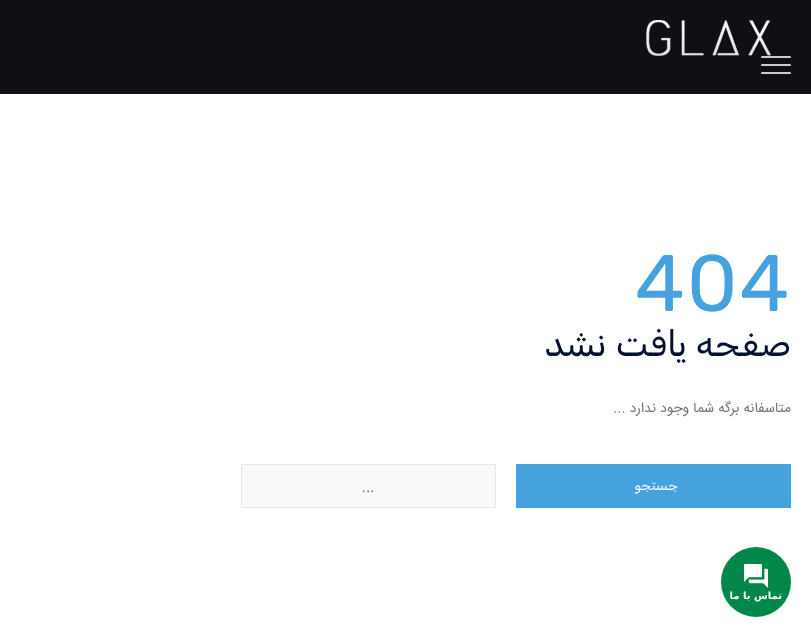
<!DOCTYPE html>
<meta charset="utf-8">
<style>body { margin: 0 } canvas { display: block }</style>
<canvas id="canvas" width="811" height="637"></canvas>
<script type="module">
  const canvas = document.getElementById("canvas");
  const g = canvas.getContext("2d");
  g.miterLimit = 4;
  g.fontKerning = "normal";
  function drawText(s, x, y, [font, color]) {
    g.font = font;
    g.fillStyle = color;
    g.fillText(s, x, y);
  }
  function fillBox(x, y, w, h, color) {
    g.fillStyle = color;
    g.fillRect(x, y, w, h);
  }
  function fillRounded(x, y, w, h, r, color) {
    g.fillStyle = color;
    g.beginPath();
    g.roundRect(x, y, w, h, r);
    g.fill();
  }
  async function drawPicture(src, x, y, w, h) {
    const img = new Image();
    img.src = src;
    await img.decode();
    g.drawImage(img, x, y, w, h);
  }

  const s1 = ["80px Rubik", "#45A2DF"];
  const s2 = ["36px Rubik", "#041230"];
  const s3 = ["14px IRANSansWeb", "#757575"];
  const s4 = ["14px Rubik", "#FFFFFF"];
  const s5 = ["14px Open Sans", "#757575"];
  const s6 = ["bold 10px DejaVu Sans", "#FFFFFF"];

  fillBox(0, 0, 811, 637, "#FFFFFF");
  fillBox(0, 0, 811, 94, "#0F0F16");
  await drawPicture("pic1.png", 646, 20, 125, 36);
  fillRounded(761, 72, 30, 2, 1, "#CCCCCC");
  fillRounded(761, 56, 30, 2, 1, "#CCCCCC");
  fillRounded(761, 64, 30, 2, 1, "#CCCCCC");
  g.letterSpacing = "2px";
  drawText("404", 635, 311, s1);
  g.letterSpacing = "0px";
  g.direction = "rtl";
  drawText("صفحه یافت نشد", 791, 356, s2);
  drawText("متاسفانه برگه شما وجود ندارد ...", 791, 412, s3);
  fillBox(516, 464, 275, 44, "#45A2DF");
  g.letterSpacing = "0.5px";
  drawText("جستجو", 678, 490, s4);
  g.fillStyle = "#F9F9F9";
  g.beginPath();
  g.rect(241.5, 464.5, 254, 43);
  g.fill();
  g.strokeStyle = "#E5E5E5";
  g.stroke();
  g.direction = "ltr";
  drawText("...", 362, 492, s5);
  g.fillStyle = "#008749";
  g.beginPath();
  g.arc(756, 582, 35, 0, Math.PI * 2);
  g.fill();
  await drawPicture("pic2.png", 744, 564, 24, 24);
  g.letterSpacing = "0px";
  g.direction = "rtl";
  drawText("تماس با ما", 782, 599, s6);
</script>
